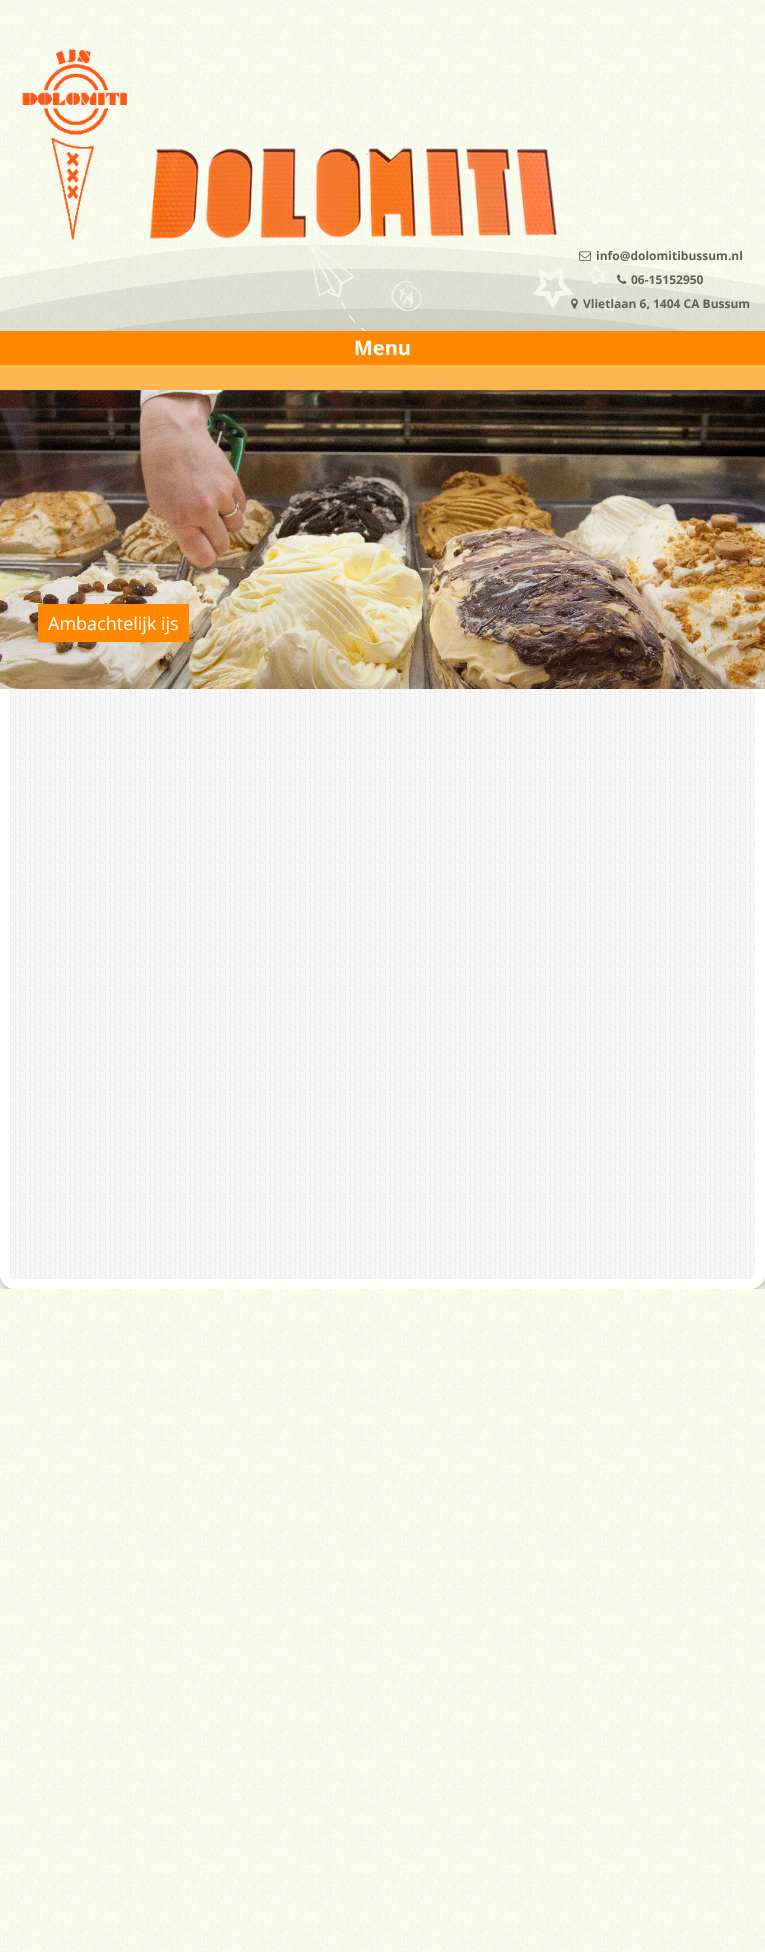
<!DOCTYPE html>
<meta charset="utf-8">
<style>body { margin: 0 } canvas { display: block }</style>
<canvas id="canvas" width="765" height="1952"></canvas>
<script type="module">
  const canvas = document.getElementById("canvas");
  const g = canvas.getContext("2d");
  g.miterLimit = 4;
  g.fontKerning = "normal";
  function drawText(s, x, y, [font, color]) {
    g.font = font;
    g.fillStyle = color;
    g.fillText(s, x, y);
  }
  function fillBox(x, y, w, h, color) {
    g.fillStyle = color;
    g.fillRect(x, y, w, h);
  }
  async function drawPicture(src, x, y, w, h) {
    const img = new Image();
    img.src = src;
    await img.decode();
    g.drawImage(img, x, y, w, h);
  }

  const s1 = ["bold 12px Open Sans", "#645F54"];
  const s2 = ["bold 20px Open Sans", "#FFFFFF"];
  const s3 = ["18px Open Sans", "#FFFFFF"];

  fillBox(0, 0, 765, 1952, "#FFFFFF");
  await drawPicture("pic1.png", 0, 0, 765, 1952);
  await drawPicture("pic2.png", 0, 240, 765, 91);
  await drawPicture("pic3.png", 22, 49, 536, 191);
  await drawPicture("pic4.png", 579, 251, 12, 10);
  drawText("info@dolomitibussum.nl", 596, 260, s1);
  await drawPicture("pic5.png", 617, 274, 10, 10);
  drawText("06-15152950", 631, 284, s1);
  await drawPicture("pic6.png", 571, 298, 7, 11);
  drawText("Vlietlaan 6, 1404 CA Bussum", 583, 308, s1);
  fillBox(0, 365, 765, 25, "#FAB650");
  fillBox(0, 331, 765, 34, "#FF8800");
  drawText("Menu", 354, 355, s2);
  g.save();
  g.beginPath();
  g.rect(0, 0, 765, 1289);
  g.clip();
  g.fillStyle = "#85969F";
  g.filter = "blur(8px)";
  g.beginPath();
  g.roundRect(0, 689, 765, 600, 15);
  g.fill();
  g.filter = "none";
  g.restore();
  await drawPicture("pic7.png", 0, 390, 765, 299);
  fillBox(38, 604, 151, 38, "#FF8800");
  drawText("Ambachtelijk ijs", 48, 630, s3);
  await drawPicture("pic8.png", 0, 689, 765, 600);
  g.beginPath();
  g.moveTo(0, 689);
  g.lineTo(765, 689);
  g.lineTo(765, 1274);
  g.bezierCurveTo(765, 1282, 758, 1289, 750, 1289);
  g.lineTo(15, 1289);
  g.bezierCurveTo(7, 1289, 0, 1282, 0, 1274);
  g.closePath();
  g.moveTo(10, 689);
  g.lineTo(755, 689);
  g.lineTo(755, 1274);
  g.bezierCurveTo(755, 1277, 753, 1279, 750, 1279);
  g.lineTo(15, 1279);
  g.bezierCurveTo(12, 1279, 10, 1277, 10, 1274);
  g.closePath();
  g.fill("evenodd");
</script>
